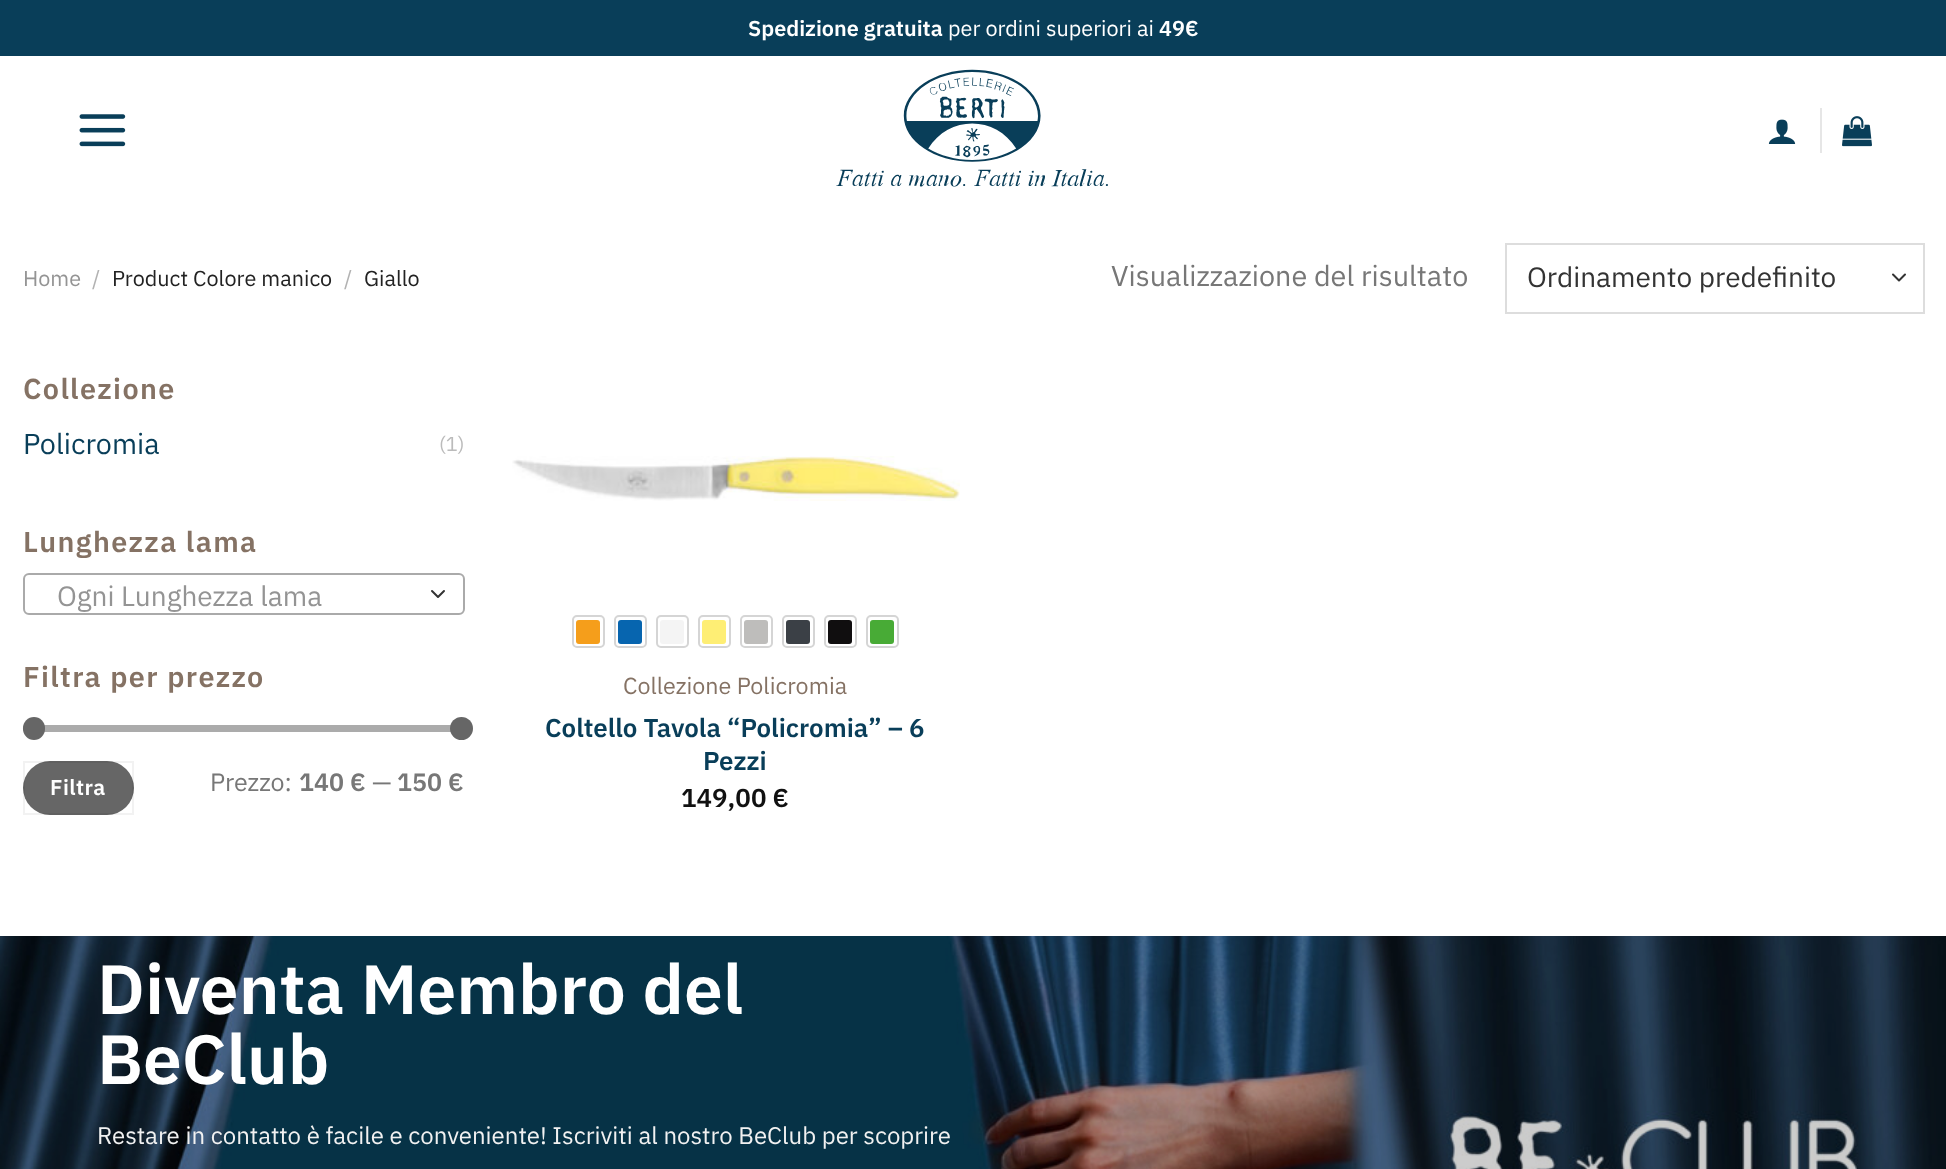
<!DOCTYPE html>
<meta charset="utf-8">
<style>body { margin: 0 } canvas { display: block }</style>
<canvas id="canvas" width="1946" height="1169"></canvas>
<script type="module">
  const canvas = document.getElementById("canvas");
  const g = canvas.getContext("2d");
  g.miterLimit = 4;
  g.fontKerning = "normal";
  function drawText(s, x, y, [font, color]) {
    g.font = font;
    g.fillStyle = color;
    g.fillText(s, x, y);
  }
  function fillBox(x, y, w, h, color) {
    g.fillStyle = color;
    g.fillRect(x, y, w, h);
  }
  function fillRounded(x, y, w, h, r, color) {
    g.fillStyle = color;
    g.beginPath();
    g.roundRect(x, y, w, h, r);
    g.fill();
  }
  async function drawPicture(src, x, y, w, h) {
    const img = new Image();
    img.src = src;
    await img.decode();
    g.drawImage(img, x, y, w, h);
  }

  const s1 = ["600 21.6px IBM Plex Sans", "#FFFFFF"];
  const s2 = ["21.6px IBM Plex Sans", "#FFFFFF"];
  const s3 = ["21.6px IBM Plex Sans", "#949494"];
  const s4 = ["21.6px IBM Plex Sans", "#B2B2B2"];
  const s5 = ["21.6px IBM Plex Sans", "#222222"];
  const s6 = ["28.75px IBM Plex Sans", "#777777"];
  const s7 = ["28px IBM Plex Sans", "#333333"];
  const s8 = ["600 28.75px IBM Plex Sans", "#857264"];
  const s9 = ["28.75px IBM Plex Sans", "#093E59"];
  const s10 = ["20px IBM Plex Sans", "#BBBBBB"];
  const s11 = ["28px IBM Plex Sans", "#949494"];
  const s12 = ["600 21.5px IBM Plex Sans", "#FFFFFF"];
  const s13 = ["25px IBM Plex Sans", "#777777"];
  const s14 = ["600 25px IBM Plex Sans", "#777777"];
  const s15 = ["23.25px IBM Plex Sans", "#857264"];
  const s16 = ["600 25.9px IBM Plex Sans", "#093E59"];
  const s17 = ["600 25.9px IBM Plex Sans", "#111111"];
  const s18 = ["600 69.5px IBM Plex Sans", "#FFFFFF"];
  const s19 = ["24px IBM Plex Sans", "#F1F1F1"];

  fillBox(0, 0, 1946, 1169, "#FFFFFF");
  fillBox(0, 0, 1946, 56, "#093E59");
  drawText("Spedizione gratuita", 748, 36, s1);
  drawText("per ordini superiori ai", 948, 36, s2);
  drawText("49€", 1159, 36, s1);
  await drawPicture("pic1.png", 79, 114, 47, 33);
  await drawPicture("pic2.png", 836, 69, 272, 118);
  await drawPicture("pic3.png", 1768, 119, 28, 25);
  fillBox(1820, 108, 2, 45, "#E6E6E6");
  await drawPicture("pic4.png", 1842, 116, 30, 31);
  drawText("Home", 23, 286, s3);
  drawText("/", 92, 286, s4);
  drawText("Product Colore manico", 112, 286, s5);
  drawText("/", 344, 286, s4);
  drawText("Giallo", 364, 286, s5);
  drawText("Visualizzazione del risultato", 1111, 286, s6);
  g.beginPath();
  g.moveTo(1893, 274.5);
  g.lineTo(1899, 280.5);
  g.lineTo(1905, 274.5);
  g.strokeStyle = "#333333";
  g.lineWidth = 2;
  g.lineCap = "round";
  g.lineJoin = "round";
  g.stroke();
  g.strokeStyle = "#DDDDDD";
  g.lineJoin = "miter";
  g.strokeRect(1506, 244, 418, 69);
  drawText("Ordinamento predefinito", 1527, 287, s7);
  g.letterSpacing = "1.4px";
  drawText("Collezione", 23, 399, s8);
  g.letterSpacing = "0px";
  drawText("Policromia", 23, 454, s9);
  drawText("(1)", 439, 451, s10);
  g.letterSpacing = "1.4px";
  drawText("Lunghezza lama", 23, 552, s8);
  g.beginPath();
  g.moveTo(432, 591);
  g.lineTo(438, 597);
  g.lineTo(444, 591);
  g.strokeStyle = "#333333";
  g.lineJoin = "round";
  g.stroke();
  g.beginPath();
  g.roundRect(24, 574, 440, 40, 5);
  g.strokeStyle = "#AAAAAA";
  g.lineJoin = "miter";
  g.stroke();
  g.letterSpacing = "0px";
  drawText("Ogni Lunghezza lama", 57, 606, s11);
  g.letterSpacing = "1.4px";
  drawText("Filtra per prezzo", 23, 687, s8);
  fillRounded(23, 725, 442, 7, 3.5, "#F1F1F1");
  fillRounded(23, 725, 442, 7, 3.5, "rgba(102, 102, 102, 0.5)");
  fillRounded(23, 717, 22, 23, 11, "#666666");
  g.beginPath();
  g.arc(461.5, 728.5, 11.5, 0, Math.PI * 2);
  g.fill();
  fillRounded(23, 761, 111, 54, 27, "#666666");
  g.strokeStyle = "rgba(0, 0, 0, 0.05)";
  g.strokeRect(24, 762, 109, 52);
  g.letterSpacing = "0.5px";
  drawText("Filtra", 50, 795, s12);
  g.letterSpacing = "0px";
  drawText("Prezzo:", 210, 791, s13);
  drawText("140 €", 299, 791, s14);
  drawText("—", 372, 791, s13);
  drawText("150 €", 397, 791, s14);
  await drawPicture("pic5.png", 512, 456, 448, 45);
  g.beginPath();
  g.roundRect(573, 616, 31, 31, 4);
  g.strokeStyle = "#D5D5D5";
  g.stroke();
  fillRounded(576, 620, 24, 24, 3, "#F59E1B");
  g.beginPath();
  g.roundRect(615, 616, 31, 31, 4);
  g.stroke();
  fillRounded(618, 620, 24, 24, 3, "#0765AF");
  g.beginPath();
  g.roundRect(657, 616, 31, 31, 4);
  g.stroke();
  fillRounded(660, 620, 24, 24, 3, "#F4F4F4");
  g.beginPath();
  g.roundRect(699, 616, 31, 31, 4);
  g.stroke();
  fillRounded(702, 620, 24, 24, 3, "#FEEE74");
  g.beginPath();
  g.roundRect(741, 616, 31, 31, 4);
  g.stroke();
  fillRounded(744, 620, 24, 24, 3, "#BEBDBB");
  g.beginPath();
  g.roundRect(783, 616, 31, 31, 4);
  g.stroke();
  fillRounded(786, 620, 24, 24, 3, "#3B4046");
  g.beginPath();
  g.roundRect(825, 616, 31, 31, 4);
  g.stroke();
  fillRounded(828, 620, 24, 24, 3, "#100E0F");
  g.beginPath();
  g.roundRect(867, 616, 31, 31, 4);
  g.stroke();
  fillRounded(870, 620, 24, 24, 3, "#48AB36");
  drawText("Collezione Policromia", 623, 694, s15);
  drawText("Coltello Tavola “Policromia” – 6", 545, 737, s16);
  drawText("Pezzi", 703, 770, s16);
  drawText("149,00 €", 681, 807, s17);
  await drawPicture("pic6.png", 0, 936, 1946, 233);
  drawText("Diventa Membro del", 97, 1014, s18);
  drawText("BeClub", 97, 1084, s18);
  drawText("Restare in contatto è facile e conveniente! Iscriviti al nostro BeClub per scoprire", 97, 1144, s19);
</script>
